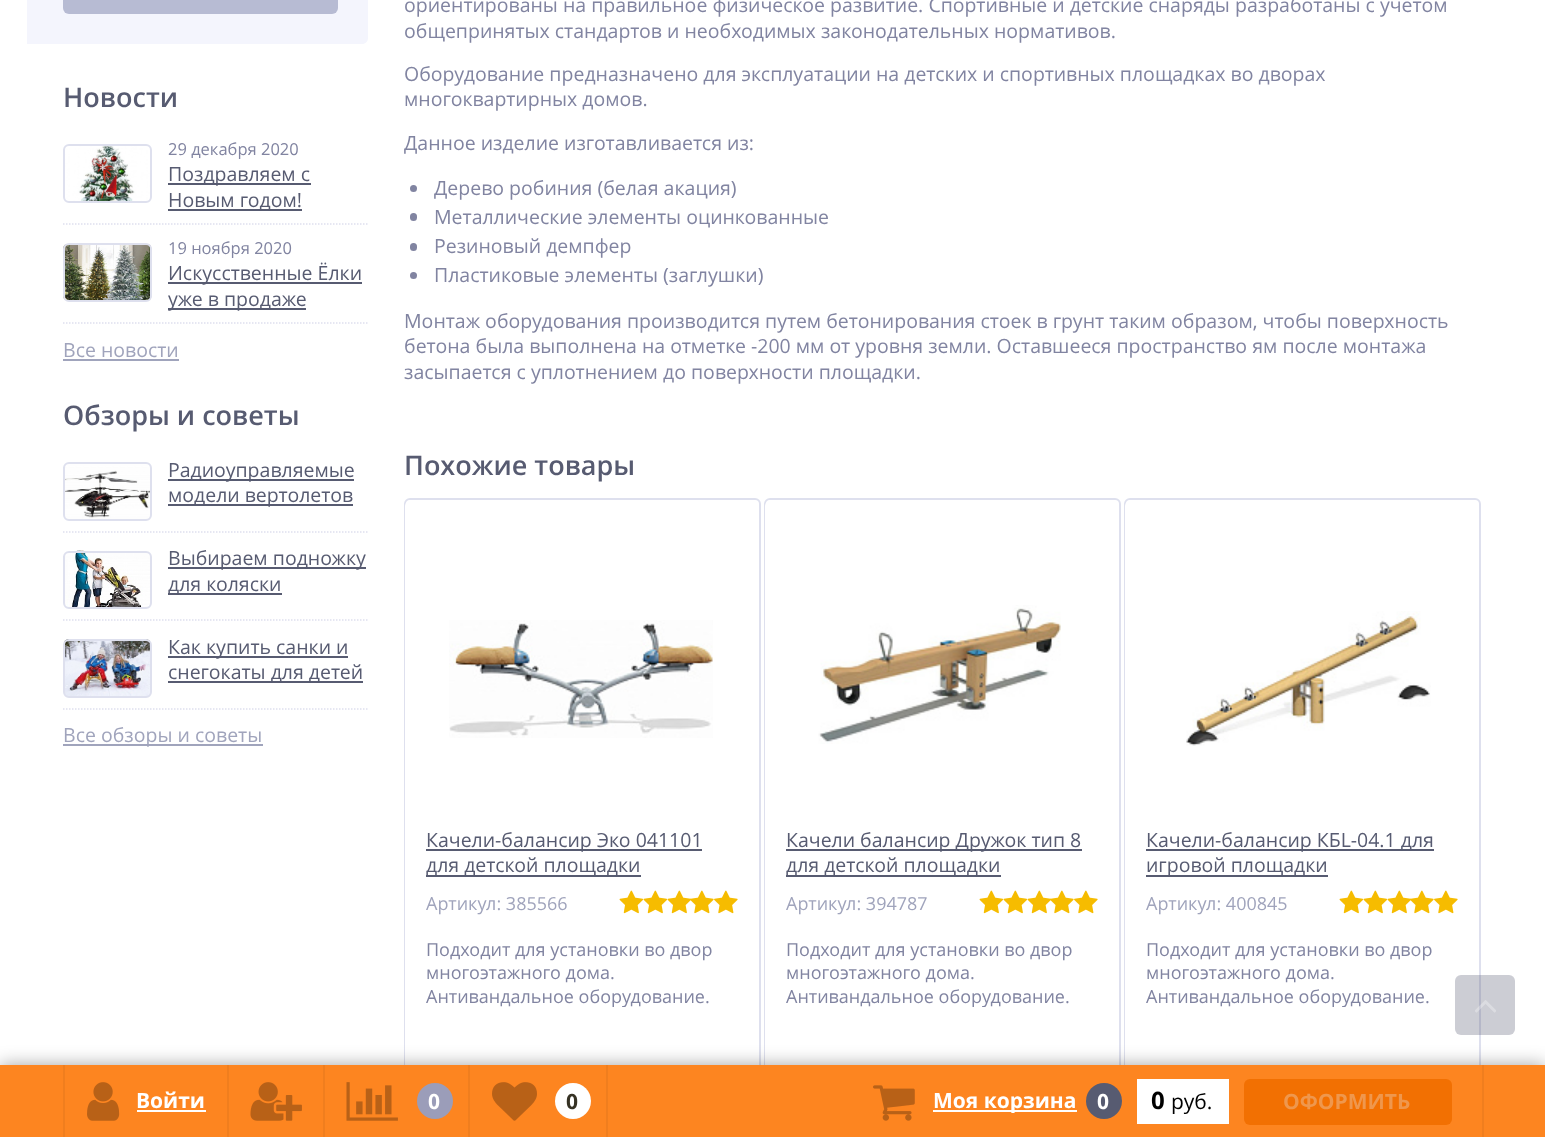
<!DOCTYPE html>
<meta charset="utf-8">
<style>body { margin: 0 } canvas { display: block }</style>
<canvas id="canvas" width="1545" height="1137"></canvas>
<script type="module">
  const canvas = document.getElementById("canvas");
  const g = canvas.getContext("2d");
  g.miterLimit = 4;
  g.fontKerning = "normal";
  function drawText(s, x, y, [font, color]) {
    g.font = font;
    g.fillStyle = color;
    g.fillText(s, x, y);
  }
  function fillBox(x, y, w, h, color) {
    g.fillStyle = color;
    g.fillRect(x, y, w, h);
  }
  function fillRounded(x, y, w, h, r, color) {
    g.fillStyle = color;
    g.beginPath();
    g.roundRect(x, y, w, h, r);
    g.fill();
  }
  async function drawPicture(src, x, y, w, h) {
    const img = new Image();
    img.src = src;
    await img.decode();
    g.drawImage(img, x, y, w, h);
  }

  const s1 = ["600 27px Open Sans", "#575B71"];
  const s2 = ["16.5px Open Sans", "#8184A1"];
  const s3 = ["19.5px Open Sans", "#575B71"];
  const s4 = ["19.5px Open Sans", "#A0A4BC"];
  const s5 = ["19.5px Open Sans", "#8184A1"];
  const s6 = ["18px Open Sans", "#A0A4BC"];
  const s7 = ["18px Open Sans", "#8184A1"];
  const s8 = ["bold 21px Open Sans", "#FFFFFF"];
  const s9 = ["bold 21px Open Sans", "#363224"];
  const s10 = ["bold 24px Open Sans", "#000000"];
  const s11 = ["21px Open Sans", "#000000"];
  const s12 = ["bold 21px Open Sans", "#EF974D"];

  fillBox(0, 0, 1545, 1137, "#FFFFFF");
  g.fillStyle = "#F4F5FD";
  g.beginPath();
  g.moveTo(27, -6);
  g.lineTo(362, -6);
  g.bezierCurveTo(365.5, -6, 368, -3.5, 368, 0);
  g.lineTo(368, 38);
  g.bezierCurveTo(368, 41.5, 365.5, 44, 362, 44);
  g.lineTo(27, 44);
  g.closePath();
  g.fill();
  fillRounded(63, -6, 275, 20, 6, "#B7BBD3");
  drawText("Новости", 63, 107, s1);
  g.beginPath();
  g.moveTo(63, 224);
  g.lineTo(367.5, 224);
  g.strokeStyle = "#DEE0EE";
  g.lineWidth = 1.5;
  g.setLineDash([1.5, 1.5]);
  g.stroke();
  await drawPicture("pic1.png", 64, 144, 86, 59);
  g.beginPath();
  g.roundRect(64, 145, 87, 57, 5);
  g.lineWidth = 2;
  g.setLineDash([]);
  g.stroke();
  drawText("29 декабря 2020", 168, 155, s2);
  fillBox(168, 183, 143, 2, "#575B71");
  drawText("Поздравляем с", 168, 181, s3);
  fillBox(168, 209, 134, 2, "#575B71");
  drawText("Новым годом!", 168, 207, s3);
  g.beginPath();
  g.moveTo(63, 323);
  g.lineTo(367.5, 323);
  g.lineWidth = 1.5;
  g.setLineDash([1.5, 1.5]);
  g.stroke();
  await drawPicture("pic2.png", 63, 244, 89, 56);
  g.beginPath();
  g.roundRect(64, 244, 87, 57, 5);
  g.lineWidth = 2;
  g.setLineDash([]);
  g.stroke();
  drawText("19 ноября 2020", 168, 254, s2);
  fillBox(168, 282, 194, 2, "#575B71");
  drawText("Искусственные Ёлки", 168, 280, s3);
  fillBox(168, 308, 138, 2, "#575B71");
  drawText("уже в продаже", 168, 306, s3);
  drawText("Все новости", 63, 357, s4);
  fillBox(63, 359, 116, 2, "#A0A4BC");
  drawText("Обзоры и советы", 63, 425, s1);
  g.beginPath();
  g.moveTo(63, 532);
  g.lineTo(367.5, 532);
  g.lineWidth = 1.5;
  g.setLineDash([1.5, 1.5]);
  g.stroke();
  await drawPicture("pic3.png", 63, 463, 89, 56);
  g.beginPath();
  g.roundRect(64, 463, 87, 57, 5);
  g.lineWidth = 2;
  g.setLineDash([]);
  g.stroke();
  fillBox(168, 479, 186, 2, "#575B71");
  drawText("Радиоуправляемые", 168, 477, s3);
  fillBox(168, 504, 185, 2, "#575B71");
  drawText("модели вертолетов", 168, 502, s3);
  g.beginPath();
  g.moveTo(63, 620);
  g.lineTo(367.5, 620);
  g.lineWidth = 1.5;
  g.setLineDash([1.5, 1.5]);
  g.stroke();
  await drawPicture("pic4.png", 64, 550, 86, 59);
  g.beginPath();
  g.roundRect(64, 552, 87, 56, 5);
  g.lineWidth = 2;
  g.setLineDash([]);
  g.stroke();
  fillBox(168, 567, 198, 2, "#575B71");
  drawText("Выбираем подножку", 168, 565, s3);
  fillBox(168, 593, 114, 2, "#575B71");
  drawText("для коляски", 168, 591, s3);
  g.beginPath();
  g.moveTo(63, 709);
  g.lineTo(367.5, 709);
  g.lineWidth = 1.5;
  g.setLineDash([1.5, 1.5]);
  g.stroke();
  await drawPicture("pic5.png", 64, 639, 86, 59);
  g.beginPath();
  g.roundRect(64, 640, 87, 57, 5);
  g.lineWidth = 2;
  g.setLineDash([]);
  g.stroke();
  fillBox(168, 656, 180, 2, "#575B71");
  drawText("Как купить санки и", 168, 654, s3);
  fillBox(168, 681, 195, 2, "#575B71");
  drawText("снегокаты для детей", 168, 679, s3);
  fillBox(63, 744, 200, 2, "#A0A4BC");
  drawText("Все обзоры и советы", 63, 742, s4);
  drawText("ориентированы на правильное физическое развитие. Спортивные и детские снаряды разработаны с учетом", 404, 12, s5);
  drawText("общепринятых стандартов и необходимых законодательных нормативов.", 404, 38, s5);
  drawText("Оборудование предназначено для эксплуатации на детских и спортивных площадках во дворах", 404, 81, s5);
  drawText("многоквартирных домов.", 404, 106, s5);
  drawText("Данное изделие изготавливается из:", 404, 150, s5);
  g.beginPath();
  g.arc(413.5, 188.5, 3.5, 0, Math.PI * 2);
  g.fill();
  drawText("Дерево робиния (белая акация)", 434, 195, s5);
  fillRounded(410, 213, 7, 8, 3.5, "#8184A1");
  drawText("Металлические элементы оцинкованные", 434, 224, s5);
  fillRounded(410, 243, 7, 8, 3.5, "#8184A1");
  drawText("Резиновый демпфер", 434, 253, s5);
  g.beginPath();
  g.arc(413.5, 275.5, 3.5, 0, Math.PI * 2);
  g.fill();
  drawText("Пластиковые элементы (заглушки)", 434, 282, s5);
  drawText("Монтаж оборудования производится путем бетонирования стоек в грунт таким образом, чтобы поверхность", 404, 328, s5);
  drawText("бетона была выполнена на отметке -200 мм от уровня земли. Оставшееся пространство ям после монтажа", 404, 353, s5);
  drawText("засыпается с уплотнением до поверхности площадки.", 404, 379, s5);
  drawText("Похожие товары", 404, 475, s1);
  g.beginPath();
  g.roundRect(405, 499, 355, 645, 5);
  g.stroke();
  g.beginPath();
  g.roundRect(406, 501, 352, 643, 5);
  g.strokeStyle = "#FFFFFF";
  g.stroke();
  await drawPicture("pic6.png", 449, 620, 264, 118);
  fillBox(426, 849, 276, 2, "#575B71");
  drawText("Качели-балансир Эко 041101", 426, 847, s3);
  fillBox(426, 875, 215, 2, "#575B71");
  drawText("для детской площадки", 426, 872, s3);
  drawText("Артикул: 385566", 426, 910, s6);
  await drawPicture("pic7.png", 619, 890, 25, 24);
  await drawPicture("pic8.png", 643, 890, 25, 24);
  await drawPicture("pic9.png", 667, 890, 24, 24);
  await drawPicture("pic10.png", 690, 890, 24, 24);
  await drawPicture("pic11.png", 714, 890, 24, 24);
  drawText("Подходит для установки во двор", 426, 956, s7);
  drawText("многоэтажного дома.", 426, 979, s7);
  g.save();
  g.beginPath();
  g.rect(426, 938, 312, 69);
  g.clip();
  drawText("Антивандальное оборудование.", 426, 1003, s7);
  g.restore();
  g.beginPath();
  g.roundRect(765, 499, 355, 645, 5);
  g.strokeStyle = "#DEE0EE";
  g.stroke();
  g.beginPath();
  g.roundRect(766, 501, 352, 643, 5);
  g.strokeStyle = "#FFFFFF";
  g.stroke();
  await drawPicture("pic12.png", 818, 605, 243, 139);
  fillBox(786, 849, 296, 2, "#575B71");
  drawText("Качели балансир Дружок тип 8", 786, 847, s3);
  fillBox(786, 875, 215, 2, "#575B71");
  drawText("для детской площадки", 786, 872, s3);
  drawText("Артикул: 394787", 786, 910, s6);
  await drawPicture("pic7.png", 979, 890, 25, 24);
  await drawPicture("pic8.png", 1003, 890, 25, 24);
  await drawPicture("pic9.png", 1027, 890, 24, 24);
  await drawPicture("pic10.png", 1050, 890, 24, 24);
  await drawPicture("pic11.png", 1074, 890, 24, 24);
  drawText("Подходит для установки во двор", 786, 956, s7);
  drawText("многоэтажного дома.", 786, 979, s7);
  g.save();
  g.beginPath();
  g.rect(786, 938, 312, 69);
  g.clip();
  drawText("Антивандальное оборудование.", 786, 1003, s7);
  g.restore();
  g.beginPath();
  g.roundRect(1125, 499, 355, 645, 5);
  g.strokeStyle = "#DEE0EE";
  g.stroke();
  g.beginPath();
  g.roundRect(1126, 501, 352, 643, 5);
  g.strokeStyle = "#FFFFFF";
  g.stroke();
  await drawPicture("pic13.png", 1186, 611, 245, 135);
  fillBox(1146, 849, 288, 2, "#575B71");
  drawText("Качели-балансир КБL-04.1 для", 1146, 847, s3);
  fillBox(1146, 875, 182, 2, "#575B71");
  drawText("игровой площадки", 1146, 872, s3);
  drawText("Артикул: 400845", 1146, 910, s6);
  await drawPicture("pic7.png", 1339, 890, 25, 24);
  await drawPicture("pic8.png", 1363, 890, 25, 24);
  await drawPicture("pic9.png", 1387, 890, 24, 24);
  await drawPicture("pic10.png", 1410, 890, 24, 24);
  await drawPicture("pic11.png", 1434, 890, 24, 24);
  drawText("Подходит для установки во двор", 1146, 956, s7);
  drawText("многоэтажного дома.", 1146, 979, s7);
  g.save();
  g.beginPath();
  g.rect(1146, 938, 312, 69);
  g.clip();
  drawText("Антивандальное оборудование.", 1146, 1003, s7);
  g.restore();
  g.fillStyle = "rgba(0, 0, 0, 0.36)";
  g.filter = "blur(9px)";
  g.beginPath();
  g.rect(0, 1065, 1545, 72);
  g.fill();
  g.filter = "none";
  fillBox(0, 1065, 1545, 72, "#FD8520");
  fillBox(1482, 1065, 2, 72, "#F07E1E");
  fillBox(63, 1065, 2, 72, "#F07E1E");
  fillBox(227, 1065, 2, 72, "#F07E1E");
  await drawPicture("pic14.png", 87, 1082, 33, 39);
  drawText("Войти", 136, 1108, s8);
  fillBox(137, 1110, 69, 2, "#FFFFFF");
  fillBox(323, 1065, 2, 72, "#F07E1E");
  await drawPicture("pic15.png", 250, 1082, 52, 39);
  fillBox(468, 1065, 2, 72, "#F07E1E");
  await drawPicture("pic16.png", 346, 1082, 52, 39);
  g.fillStyle = "#9B9DB9";
  g.beginPath();
  g.arc(435, 1101, 18, 0, Math.PI * 2);
  g.fill();
  drawText("0", 428, 1109, s8);
  fillBox(606, 1065, 2, 72, "#F07E1E");
  await drawPicture("pic17.png", 492, 1082, 45, 39);
  g.fillStyle = "#FFFFFF";
  g.beginPath();
  g.arc(573, 1101, 18, 0, Math.PI * 2);
  g.fill();
  drawText("0", 566, 1109, s9);
  await drawPicture("pic18.png", 873, 1085, 42, 36);
  fillBox(933, 1110, 144, 2, "#FFFFFF");
  drawText("Моя корзина", 933, 1108, s8);
  g.fillStyle = "#575B71";
  g.beginPath();
  g.arc(1104, 1101, 18, 0, Math.PI * 2);
  g.fill();
  drawText("0", 1097, 1109, s8);
  fillBox(1137, 1079, 92, 45, "#FFFFFF");
  drawText("0", 1151, 1109, s10);
  drawText("руб.", 1171, 1109, s11);
  fillRounded(1244, 1079, 208, 46, 6, "#F27002");
  drawText("ОФОРМИТЬ", 1283, 1109, s12);
  fillRounded(1455, 975, 60, 60, 6, "rgba(87, 91, 113, 0.3)");
  await drawPicture("pic19.png", 1475, 1000, 21, 13);
</script>
